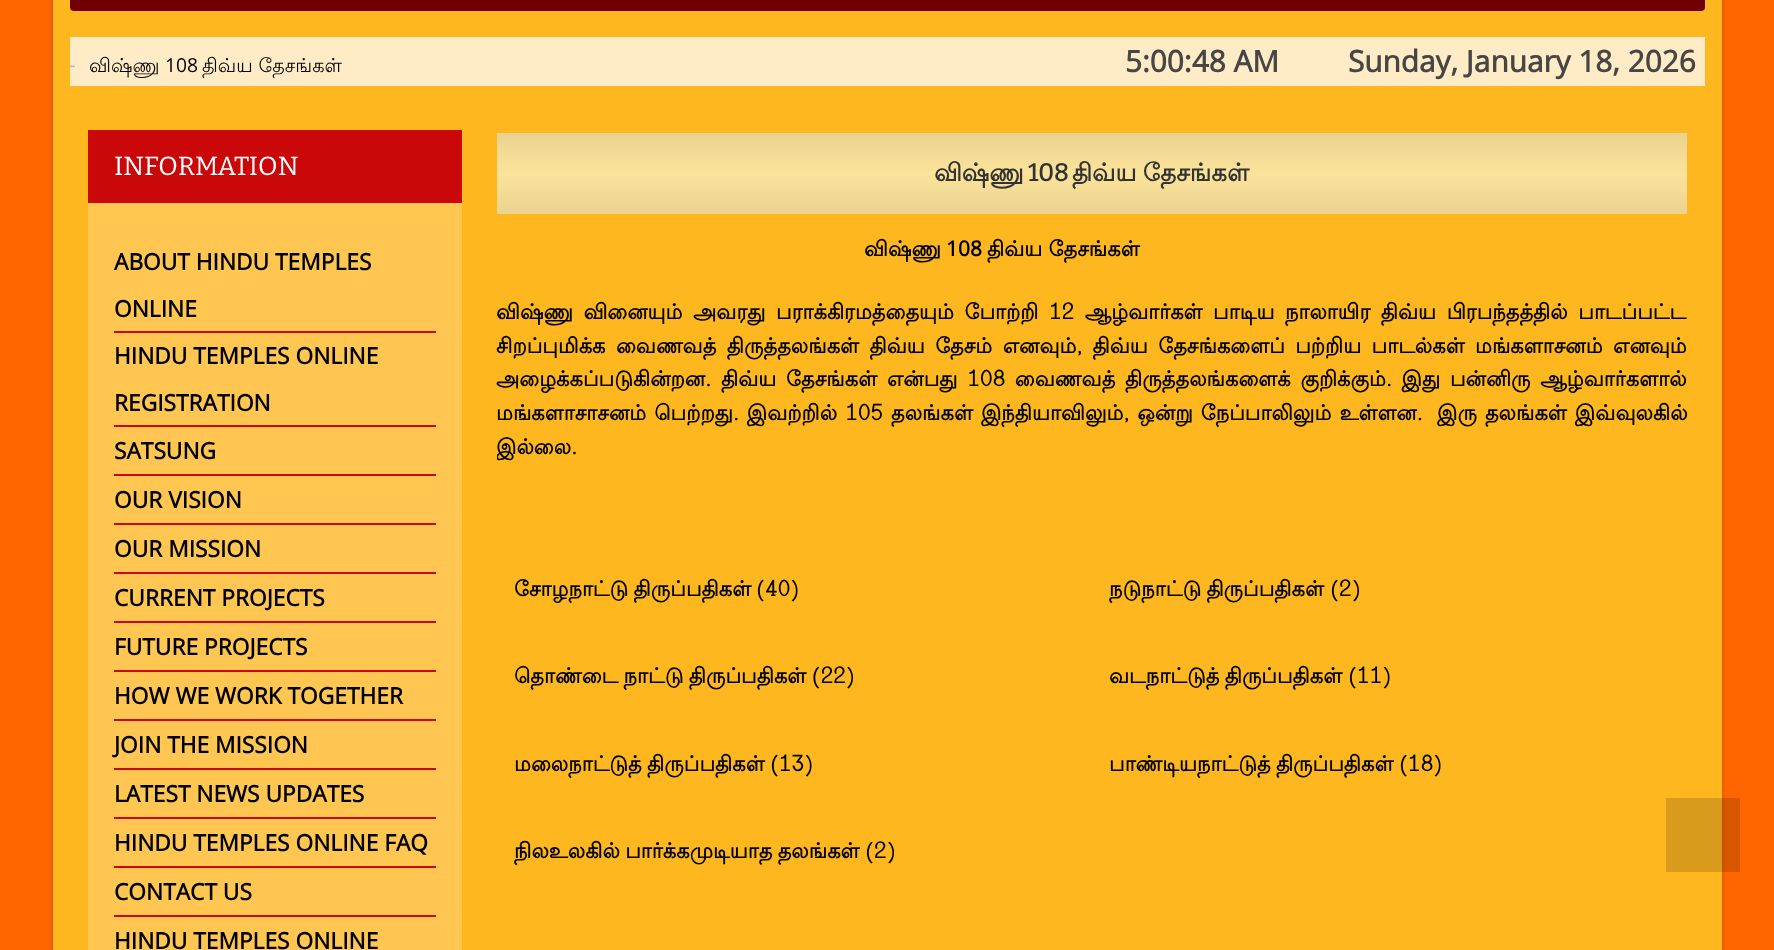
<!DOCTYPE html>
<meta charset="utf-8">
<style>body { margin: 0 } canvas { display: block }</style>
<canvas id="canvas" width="1774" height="950"></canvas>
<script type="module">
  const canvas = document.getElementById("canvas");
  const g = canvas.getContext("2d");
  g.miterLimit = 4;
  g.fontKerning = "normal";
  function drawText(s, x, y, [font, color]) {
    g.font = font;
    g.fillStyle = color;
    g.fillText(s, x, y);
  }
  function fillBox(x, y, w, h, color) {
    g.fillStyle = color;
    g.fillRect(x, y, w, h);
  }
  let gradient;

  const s1 = ["bold 29.75px Open Sans", "#464646"];
  const s2 = ["21px Open Sans", "#B6B6B6"];
  const s3 = ["19.25px Lohit Tamil", "#000000"];
  const s4 = ["19.25px Open Sans", "#000000"];
  const s5 = ["bold 24.5px Lohit Tamil", "#333333"];
  const s6 = ["bold 24.5px Bitter", "#333333"];
  const s7 = ["bold 21px Lohit Tamil", "#000000"];
  const s8 = ["bold 21px Open Sans", "#000000"];
  const s9 = ["100 26.25px Bitter", "#FFFFFF"];
  const s10 = ["bold 22.75px Open Sans", "#000000"];

  fillBox(0, 0, 1774, 950, "#FF6600");
  g.fillStyle = "rgba(0, 0, 0, 0.2)";
  g.filter = "blur(2.5px)";
  g.beginPath();
  g.rect(53, -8, 1669, 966);
  g.fill();
  g.filter = "none";
  fillBox(53, 0, 1669, 950, "#FFB720");
  gradient = g.createLinearGradient(887, -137, 887, 11);
  gradient.addColorStop(0, "#E46D6D");
  gradient.addColorStop(0.64, "#C80303");
  gradient.addColorStop(0.66, "#C80303");
  gradient.addColorStop(0.93, "#700000");
  g.fillStyle = gradient;
  g.beginPath();
  g.roundRect(70, -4, 1635, 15, 4);
  g.fill();
  fillBox(70, 37, 1635, 49, "#FFECC6");
  drawText("5:00:48 AM", 1125, 72, s1);
  drawText("Sunday, January 18, 2026", 1348, 72, s1);
  drawText("-", 69, 72, s2);
  drawText("விஷ்ணு", 89, 72, s3);
  drawText("108", 165, 72, s4);
  drawText("திவ்ய தேசங்கள்", 202, 72, s3);
  gradient = g.createLinearGradient(1092, 133, 1092, 214);
  gradient.addColorStop(0, "#EAD38F");
  gradient.addColorStop(0.5, "#FBE39B");
  gradient.addColorStop(1, "#EAD38F");
  g.fillStyle = gradient;
  g.fillRect(497, 133, 1190, 81);
  drawText("விஷ்ணு", 934, 181, s5);
  drawText("108", 1028, 181, s6);
  g.wordSpacing = "-1px";
  drawText("திவ்ய தேசங்கள்", 1072, 181, s5);
  g.wordSpacing = "0px";
  drawText("விஷ்ணு", 864, 256, s7);
  drawText("108", 946, 256, s8);
  drawText("திவ்ய தேசங்கள்", 987, 256, s7);
  g.wordSpacing = "4.25px";
  drawText("விஷ்ணு வினையும் அவரது பராக்கிரமத்தையும் போற்றி 12 ஆழ்வார்கள் பாடிய நாலாயிர திவ்ய பிரபந்தத்தில் பாடப்பட்ட", 496, 319, s7);
  g.wordSpacing = "4.1px";
  drawText("சிறப்புமிக்க வைணவத் திருத்தலங்கள் திவ்ய தேசம் எனவும், திவ்ய தேசங்களைப் பற்றிய பாடல்கள் மங்களாசனம் எனவும்", 496, 353, s7);
  g.wordSpacing = "0px";
  drawText("அழைக்கப்படுகின்றன.", 496, 386, s7);
  g.wordSpacing = "3.5px";
  drawText("திவ்ய தேசங்கள் என்பது 108 வைணவத் திருத்தலங்களைக் குறிக்கும். இது பன்னிரு ஆழ்வார்களால்", 721, 386, s7);
  g.wordSpacing = "1.75px";
  drawText("மங்களாசாசனம் பெற்றது. இவற்றில் 105 தலங்கள் இந்தியாவிலும், ஒன்று நேப்பாலிலும் உள்ளன.", 496, 420, s7);
  drawText("இரு தலங்கள் இவ்வுலகில்", 1437, 420, s7);
  g.save();
  g.beginPath();
  g.rect(497, 231, 1190, 326);
  g.clip();
  g.wordSpacing = "0px";
  drawText("இல்லை.", 496, 454, s7);
  g.restore();
  g.wordSpacing = "-1px";
  drawText("சோழநாட்டு திருப்பதிகள்", 514, 596, s7);
  g.wordSpacing = "0px";
  drawText("(40)", 756, 596, s7);
  g.wordSpacing = "-1px";
  drawText("நடுநாட்டு திருப்பதிகள்", 1109, 596, s7);
  g.wordSpacing = "0px";
  drawText("(2)", 1330, 596, s7);
  g.wordSpacing = "-1px";
  drawText("தொண்டை நாட்டு திருப்பதிகள் (22)", 514, 683, s7);
  drawText("வடநாட்டுத் திருப்பதிகள்", 1109, 683, s7);
  g.wordSpacing = "0px";
  drawText("(11)", 1348, 683, s7);
  g.wordSpacing = "-1px";
  drawText("மலைநாட்டுத் திருப்பதிகள் (13)", 514, 771, s7);
  drawText("பாண்டியநாட்டுத் திருப்பதிகள்", 1109, 771, s7);
  g.wordSpacing = "0px";
  drawText("(18)", 1399, 771, s7);
  g.wordSpacing = "-1px";
  drawText("நிலஉலகில் பார்க்கமுடியாத தலங்கள்", 514, 858, s7);
  g.wordSpacing = "0px";
  drawText("(2)", 865, 858, s7);
  fillBox(88, 130, 374, 73, "#CB0809");
  drawText("INFORMATION", 114, 175, s9);
  fillBox(88, 203, 374, 747, "#FFC751");
  fillBox(114, 331, 322, 2, "#CA0809");
  drawText("ABOUT HINDU TEMPLES", 114, 270, s10);
  drawText("ONLINE", 114, 317, s10);
  fillBox(114, 425, 322, 2, "#CA0809");
  drawText("HINDU TEMPLES ONLINE", 114, 364, s10);
  drawText("REGISTRATION", 114, 411, s10);
  fillBox(114, 474, 322, 2, "#CA0809");
  drawText("SATSUNG", 114, 459, s10);
  fillBox(114, 523, 322, 2, "#CA0809");
  drawText("OUR VISION", 114, 508, s10);
  fillBox(114, 572, 322, 2, "#CA0809");
  drawText("OUR MISSION", 114, 557, s10);
  fillBox(114, 621, 322, 2, "#CA0809");
  drawText("CURRENT PROJECTS", 114, 606, s10);
  fillBox(114, 670, 322, 2, "#CA0809");
  drawText("FUTURE PROJECTS", 114, 655, s10);
  fillBox(114, 719, 322, 2, "#CA0809");
  drawText("HOW WE WORK TOGETHER", 114, 704, s10);
  fillBox(114, 768, 322, 2, "#CA0809");
  drawText("JOIN THE MISSION", 114, 753, s10);
  fillBox(114, 817, 322, 2, "#CA0809");
  drawText("LATEST NEWS UPDATES", 114, 802, s10);
  fillBox(114, 866, 322, 2, "#CA0809");
  drawText("HINDU TEMPLES ONLINE FAQ", 114, 851, s10);
  fillBox(114, 915, 322, 2, "#CA0809");
  drawText("CONTACT US", 114, 900, s10);
  drawText("HINDU TEMPLES ONLINE", 114, 949, s10);
  fillBox(1666, 798, 74, 74, "rgba(0, 0, 0, 0.15)");
</script>
